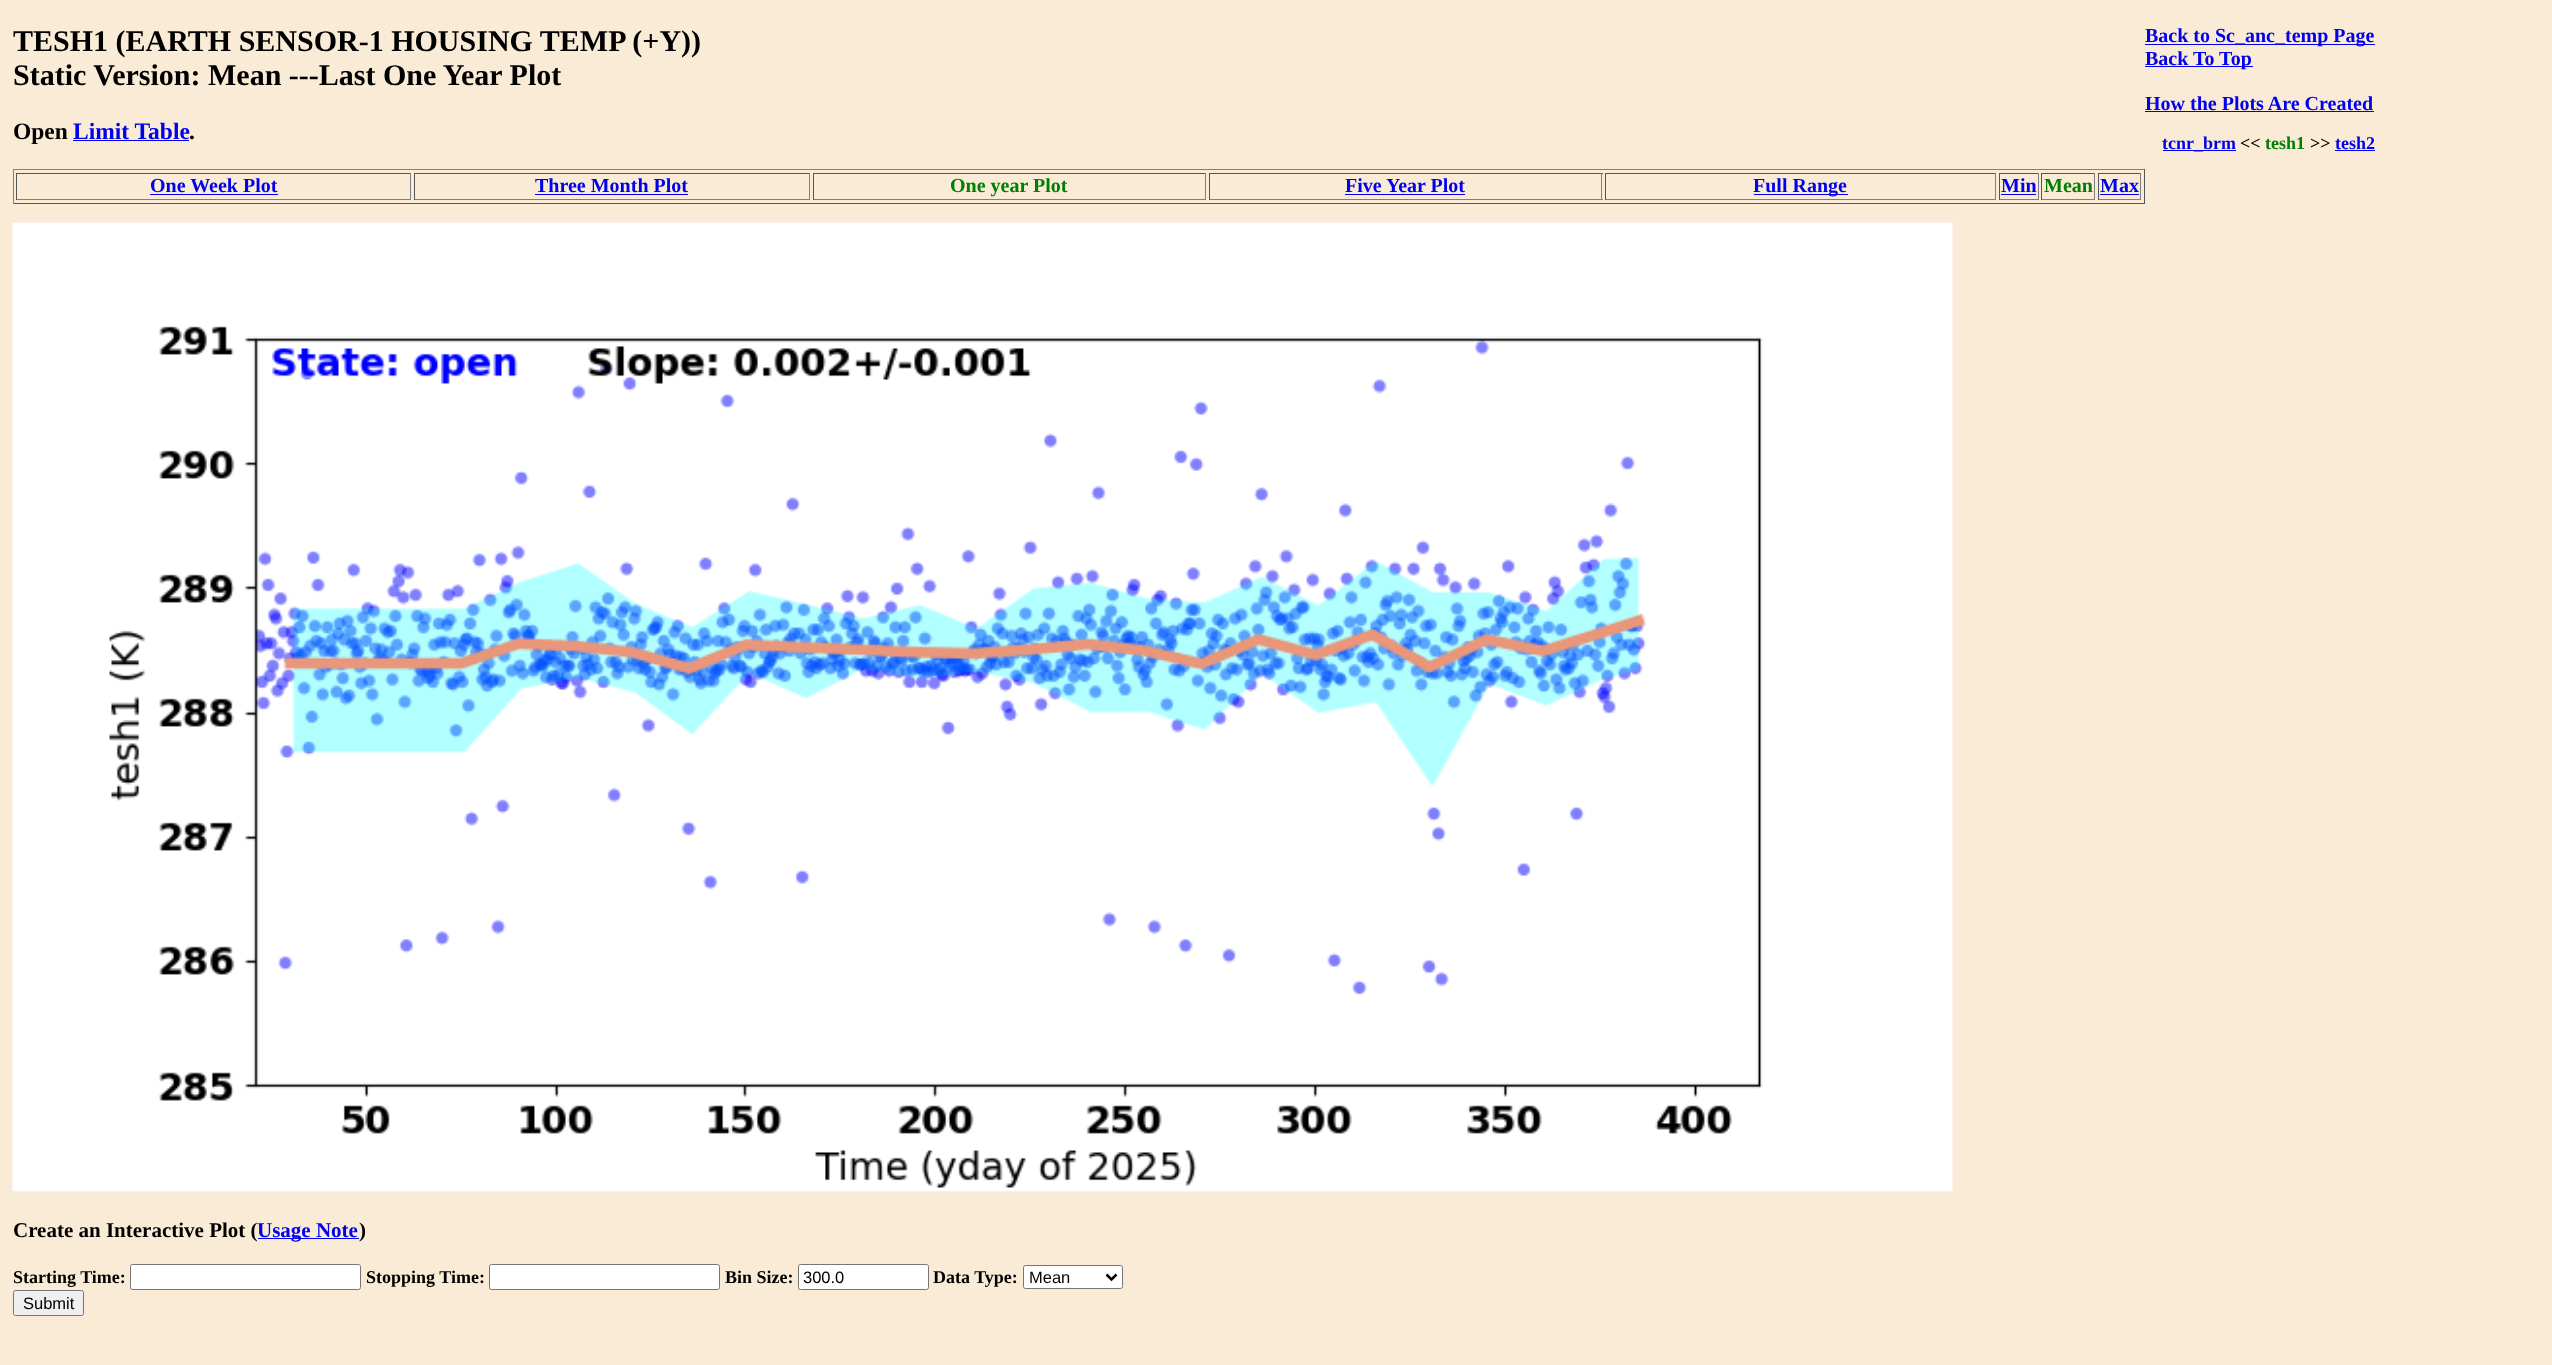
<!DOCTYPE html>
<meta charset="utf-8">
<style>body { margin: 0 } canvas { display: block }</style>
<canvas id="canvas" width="2552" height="1365"></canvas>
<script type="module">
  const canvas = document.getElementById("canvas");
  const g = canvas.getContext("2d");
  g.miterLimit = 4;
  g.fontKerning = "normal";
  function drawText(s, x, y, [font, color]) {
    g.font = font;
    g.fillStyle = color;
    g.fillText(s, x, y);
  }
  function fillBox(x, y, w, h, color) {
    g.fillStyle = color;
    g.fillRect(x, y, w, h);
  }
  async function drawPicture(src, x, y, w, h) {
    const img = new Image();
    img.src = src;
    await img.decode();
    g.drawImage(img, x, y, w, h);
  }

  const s1 = ["bold 30px Liberation Serif", "#000000"];
  const s2 = ["bold 23.5px Liberation Serif", "#000000"];
  const s3 = ["bold 23.5px Liberation Serif", "#0000EE"];
  const s4 = ["bold 20px Liberation Serif", "#0000EE"];
  const s5 = ["bold 20px Liberation Serif", "#008000"];
  const s6 = ["bold 21px Liberation Serif", "#000000"];
  const s7 = ["bold 21px Liberation Serif", "#0000EE"];
  const s8 = ["bold 18px Liberation Serif", "#000000"];
  const s9 = ["16.5px Liberation Sans", "#000000"];
  const s10 = ["bold 18px Liberation Serif", "#0000EE"];
  const s11 = ["bold 18px Liberation Serif", "#008000"];

  fillBox(0, 0, 2552, 1365, "#FAEBD7");
  drawText("TESH1 (EARTH SENSOR-1 HOUSING TEMP (+Y))", 13, 51, s1);
  drawText("Static Version: Mean ---Last One Year Plot", 13, 85, s1);
  drawText("Open", 13, 139, s2);
  drawText("Limit Table", 73, 139, s3);
  fillBox(73, 140, 116, 1, "#0000EE");
  drawText(".", 189, 139, s2);
  fillBox(13, 169, 2132, 1, "#808080");
  fillBox(2144, 169, 1, 35, "#555555");
  fillBox(13, 203, 2132, 1, "#555555");
  fillBox(13, 169, 1, 35, "#808080");
  fillBox(16, 173, 395, 1, "#555555");
  fillBox(410, 173, 1, 27, "#808080");
  fillBox(16, 199, 395, 1, "#808080");
  fillBox(16, 173, 1, 27, "#555555");
  drawText("One Week Plot", 150, 192, s4);
  fillBox(150, 194, 128, 1, "#0000EE");
  fillBox(414, 173, 396, 1, "#555555");
  fillBox(809, 173, 1, 27, "#808080");
  fillBox(414, 199, 396, 1, "#808080");
  fillBox(414, 173, 1, 27, "#555555");
  drawText("Three Month Plot", 535, 192, s4);
  fillBox(535, 194, 153, 1, "#0000EE");
  fillBox(813, 173, 393, 1, "#555555");
  fillBox(1205, 173, 1, 27, "#808080");
  fillBox(813, 199, 393, 1, "#808080");
  fillBox(813, 173, 1, 27, "#555555");
  drawText("One year Plot", 950, 192, s5);
  fillBox(1209, 173, 394, 1, "#555555");
  fillBox(1601, 173, 1, 27, "#808080");
  fillBox(1209, 199, 394, 1, "#808080");
  fillBox(1209, 173, 1, 27, "#555555");
  drawText("Five Year Plot", 1345, 192, s4);
  fillBox(1345, 194, 120, 1, "#0000EE");
  fillBox(1605, 173, 391, 1, "#555555");
  fillBox(1995, 173, 1, 27, "#808080");
  fillBox(1605, 199, 391, 1, "#808080");
  fillBox(1605, 173, 1, 27, "#555555");
  fillBox(1754, 194, 94, 1, "#0000EE");
  drawText("Full Range", 1753, 192, s4);
  fillBox(1999, 173, 40, 1, "#555555");
  fillBox(2038, 173, 1, 27, "#808080");
  fillBox(1999, 199, 40, 1, "#808080");
  fillBox(1999, 173, 1, 27, "#555555");
  drawText("Min", 2001, 192, s4);
  fillBox(2001, 194, 35, 1, "#0000EE");
  fillBox(2041, 173, 54, 1, "#555555");
  fillBox(2094, 173, 1, 27, "#808080");
  fillBox(2041, 199, 54, 1, "#808080");
  fillBox(2041, 173, 1, 27, "#555555");
  drawText("Mean", 2044, 192, s5);
  fillBox(2098, 173, 43, 1, "#555555");
  fillBox(2140, 173, 1, 27, "#808080");
  fillBox(2098, 199, 43, 1, "#808080");
  fillBox(2098, 173, 1, 27, "#555555");
  drawText("Max", 2100, 192, s4);
  fillBox(2100, 194, 39, 1, "#0000EE");
  await drawPicture("pic1.png", 12, 222, 1941, 970);
  drawText("Create an Interactive Plot (", 13, 1237, s6);
  fillBox(258, 1238, 101, 1, "#0000EE");
  drawText("Usage Note", 257, 1237, s7);
  drawText(")", 359, 1237, s6);
  drawText("Starting Time:", 13, 1283, s8);
  g.fillStyle = "#FFFFFF";
  g.beginPath();
  g.roundRect(130.5, 1264.5, 230, 25, 2);
  g.fill();
  g.strokeStyle = "#767676";
  g.stroke();
  drawText("Stopping Time:", 366, 1283, s8);
  g.fillStyle = "#FFFFFF";
  g.beginPath();
  g.roundRect(489.5, 1264.5, 230, 25, 2);
  g.fill();
  g.stroke();
  drawText("Bin Size:", 725, 1283, s8);
  g.fillStyle = "#FFFFFF";
  g.beginPath();
  g.roundRect(798.5, 1264.5, 130, 25, 2);
  g.fill();
  g.stroke();
  drawText("300.0", 803, 1283, s9);
  drawText("Data Type:", 933, 1283, s8);
  g.fillStyle = "#FFFFFF";
  g.beginPath();
  g.roundRect(1023.5, 1265.5, 99, 23, 2);
  g.fill();
  g.stroke();
  g.beginPath();
  g.moveTo(1106.5, 1274.5);
  g.lineTo(1111.5, 1279.5);
  g.lineTo(1116.5, 1274.5);
  g.strokeStyle = "#000000";
  g.lineWidth = 2.5;
  g.stroke();
  drawText("Mean", 1029, 1283, s9);
  g.fillStyle = "#EFEFEF";
  g.beginPath();
  g.roundRect(13.5, 1290.5, 70, 25, 2);
  g.fill();
  g.strokeStyle = "#767676";
  g.lineWidth = 1;
  g.stroke();
  drawText("Submit", 23, 1309, s9);
  fillBox(2145, 44, 230, 1, "#0000EE");
  drawText("Back to Sc_anc_temp Page", 2145, 42, s4);
  fillBox(2145, 66, 108, 1, "#0000EE");
  drawText("Back To Top", 2145, 65, s4);
  drawText("How the Plots Are Created", 2145, 110, s4);
  fillBox(2145, 111, 229, 1, "#0000EE");
  fillBox(2163, 150, 73, 1, "#0000EE");
  drawText("tcnr_brm", 2162, 149, s10);
  drawText("<<", 2240, 149, s8);
  drawText("tesh1", 2265, 149, s11);
  drawText(">>", 2310, 149, s8);
  drawText("tesh2", 2335, 149, s10);
  fillBox(2335, 150, 40, 1, "#0000EE");
</script>
